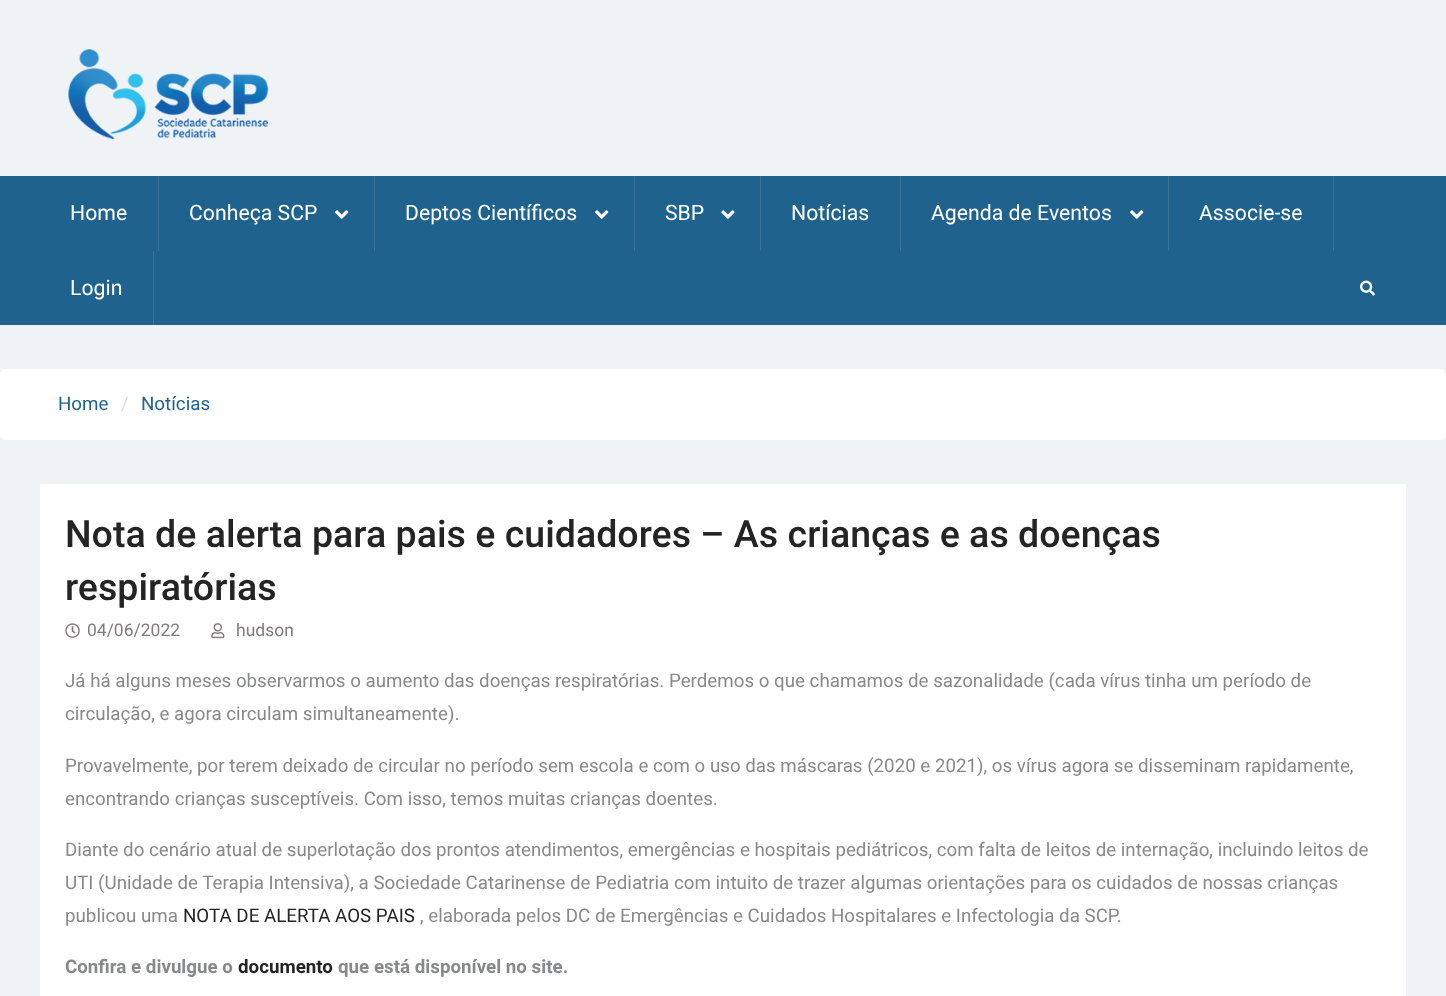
<!DOCTYPE html>
<meta charset="utf-8">
<style>body { margin: 0 } canvas { display: block }</style>
<canvas id="canvas" width="1446" height="996"></canvas>
<script type="module">
  const canvas = document.getElementById("canvas");
  const g = canvas.getContext("2d");
  g.miterLimit = 4;
  g.fontKerning = "normal";
  function drawText(s, x, y, [font, color]) {
    g.font = font;
    g.fillStyle = color;
    g.fillText(s, x, y);
  }
  function fillBox(x, y, w, h, color) {
    g.fillStyle = color;
    g.fillRect(x, y, w, h);
  }
  function fillRounded(x, y, w, h, r, color) {
    g.fillStyle = color;
    g.beginPath();
    g.roundRect(x, y, w, h, r);
    g.fill();
  }
  async function drawPicture(src, x, y, w, h) {
    const img = new Image();
    img.src = src;
    await img.decode();
    g.drawImage(img, x, y, w, h);
  }

  const s1 = ["21.25px Roboto", "#FFFFFF"];
  const s2 = ["18.75px Roboto", "#1F628E"];
  const s3 = ["18.75px Roboto", "#DDDDDD"];
  const s4 = ["500 37.5px Roboto", "#242424"];
  const s5 = ["17.5px Roboto", "#807A7A"];
  const s6 = ["18.75px Roboto", "#88898A"];
  const s7 = ["18.75px Roboto", "#242424"];
  const s8 = ["bold 18.75px Roboto", "#88898A"];
  const s9 = ["bold 18.75px Roboto", "#242424"];

  fillBox(0, 0, 1446, 996, "#F0F3F5");
  await drawPicture("pic1.png", 68, 49, 201, 90);
  fillBox(0, 176, 1446, 149, "#1F628E");
  fillBox(158, 176, 1, 75, "#38739A");
  drawText("Home", 70, 220, s1);
  fillBox(374, 176, 1, 75, "#38739A");
  drawText("Conheça SCP", 189, 220, s1);
  await drawPicture("pic2.png", 335, 210, 14, 9);
  fillBox(634, 176, 1, 75, "#38739A");
  drawText("Deptos Científicos", 405, 220, s1);
  await drawPicture("pic2.png", 595, 210, 14, 9);
  fillBox(760, 176, 1, 75, "#38739A");
  drawText("SBP", 665, 220, s1);
  await drawPicture("pic3.png", 721, 210, 14, 9);
  fillBox(900, 176, 1, 75, "#38739A");
  drawText("Notícias", 791, 220, s1);
  fillBox(1168, 176, 1, 75, "#38739A");
  drawText("Agenda de Eventos", 931, 220, s1);
  await drawPicture("pic2.png", 1130, 210, 14, 9);
  fillBox(1333, 176, 1, 75, "#38739A");
  drawText("Associe-se", 1199, 220, s1);
  fillBox(153, 251, 1, 74, "#38739A");
  drawText("Login", 70, 295, s1);
  await drawPicture("pic4.png", 1360, 280, 15, 16);
  fillRounded(0, 369, 1446, 71, 6, "#FFFFFF");
  drawText("Home", 58, 410, s2);
  drawText("/", 121, 410, s3);
  drawText("Notícias", 141, 410, s2);
  fillBox(40, 484, 1366, 512, "#FFFFFF");
  drawText("Nota de alerta para pais e cuidadores – As crianças e as doenças", 65, 547, s4);
  drawText("respiratórias", 65, 600, s4);
  await drawPicture("pic5.png", 65, 623, 15, 15);
  drawText("04/06/2022", 87, 636, s5);
  await drawPicture("pic6.png", 211, 623, 14, 16);
  drawText("hudson", 236, 636, s5);
  drawText("Já há alguns meses observarmos o aumento das doenças respiratórias. Perdemos o que chamamos de sazonalidade (cada vírus tinha um período de", 65, 687, s6);
  drawText("circulação, e agora circulam simultaneamente).", 65, 720, s6);
  drawText("Provavelmente, por terem deixado de circular no período sem escola e com o uso das máscaras (2020 e 2021), os vírus agora se disseminam rapidamente,", 65, 772, s6);
  drawText("encontrando crianças susceptíveis. Com isso, temos muitas crianças doentes.", 65, 805, s6);
  drawText("Diante do cenário atual de superlotação dos prontos atendimentos, emergências e hospitais pediátricos, com falta de leitos de internação, incluindo leitos de", 65, 856, s6);
  drawText("UTI (Unidade de Terapia Intensiva), a Sociedade Catarinense de Pediatria com intuito de trazer algumas orientações para os cuidados de nossas crianças", 65, 889, s6);
  drawText("publicou uma", 65, 922, s6);
  drawText("NOTA DE ALERTA AOS PAIS", 183, 922, s7);
  drawText(", elaborada pelos DC de Emergências e Cuidados Hospitalares e Infectologia da SCP.", 420, 922, s6);
  drawText("Confira e divulgue o", 65, 973, s8);
  drawText("documento", 238, 973, s9);
  drawText("que está disponível no site.", 338, 973, s8);
</script>
